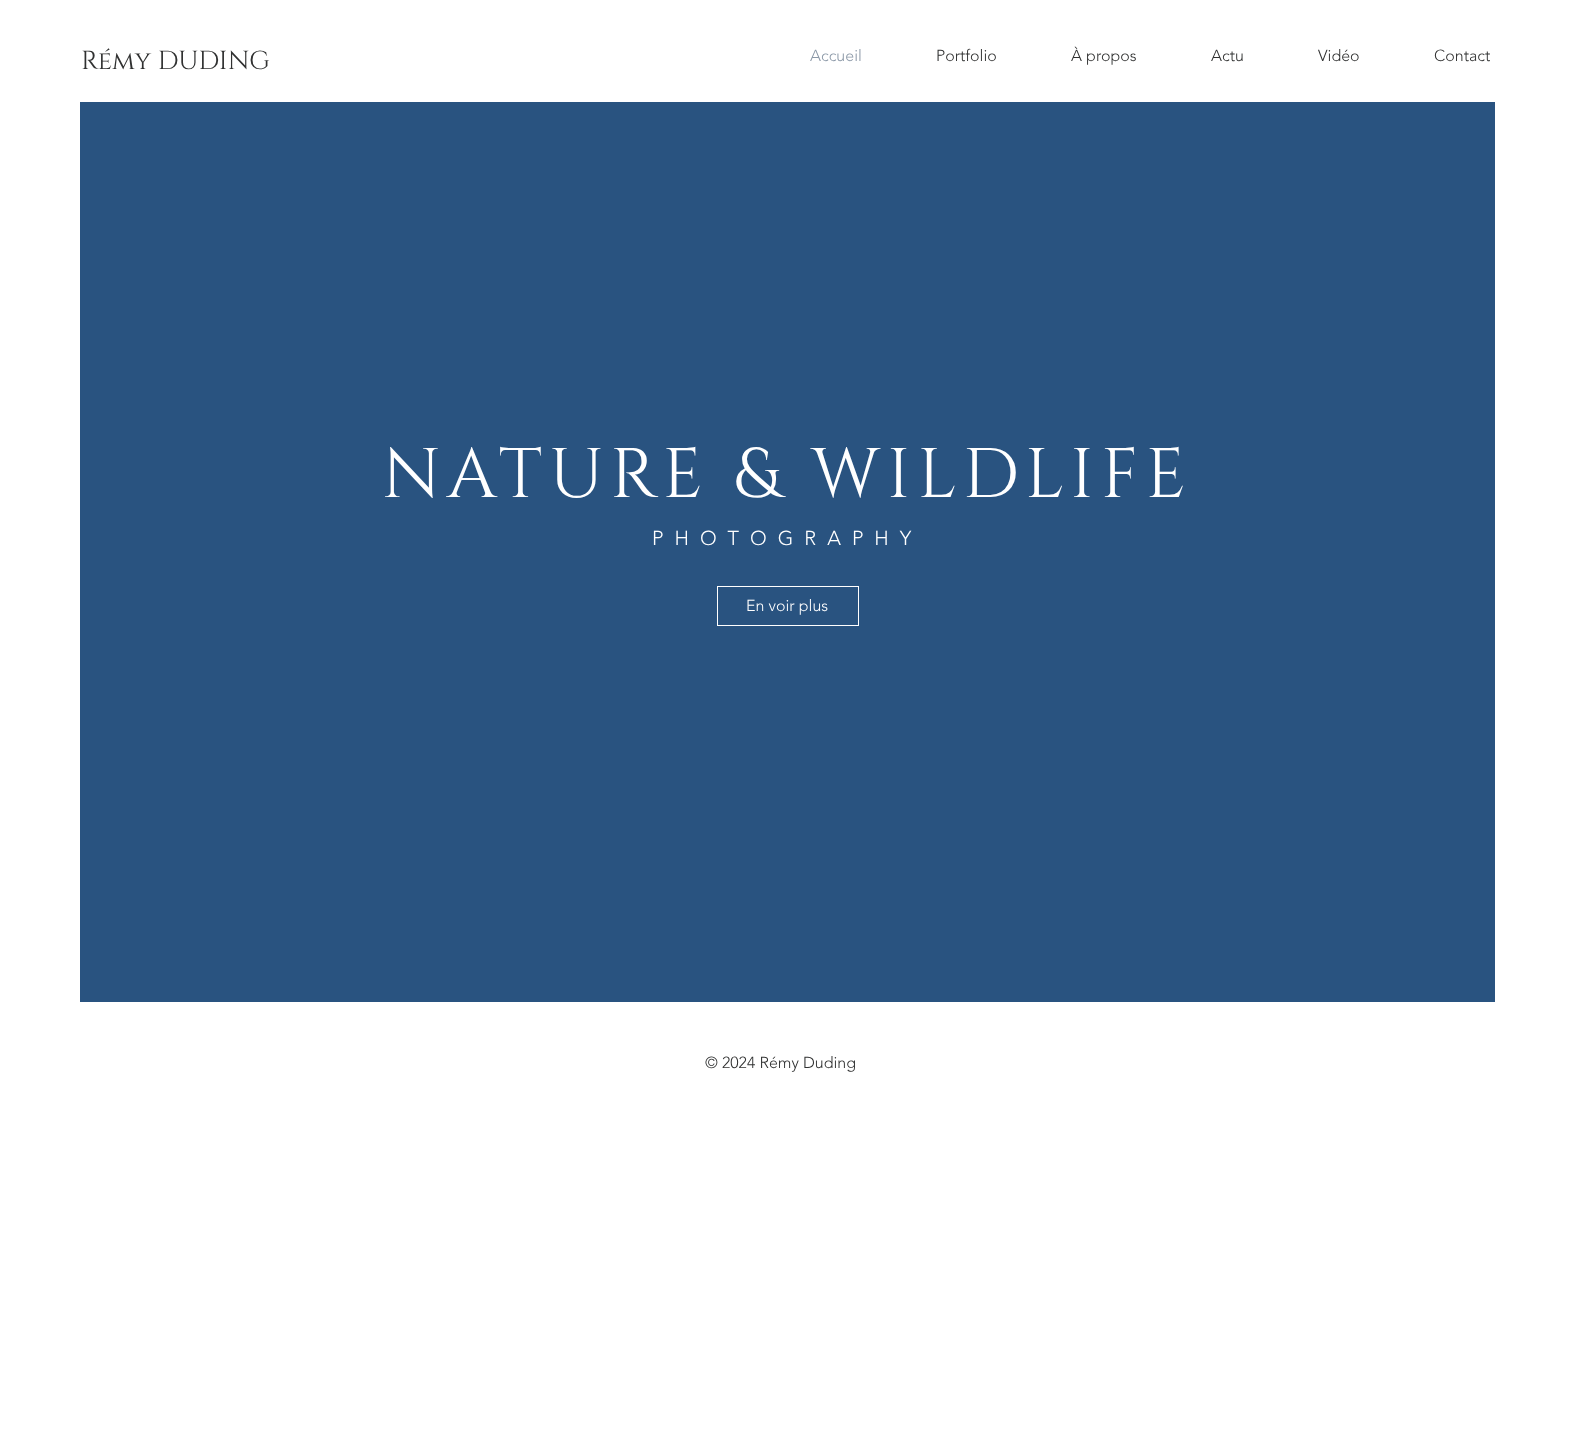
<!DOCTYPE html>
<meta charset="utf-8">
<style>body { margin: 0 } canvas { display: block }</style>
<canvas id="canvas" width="1575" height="1456"></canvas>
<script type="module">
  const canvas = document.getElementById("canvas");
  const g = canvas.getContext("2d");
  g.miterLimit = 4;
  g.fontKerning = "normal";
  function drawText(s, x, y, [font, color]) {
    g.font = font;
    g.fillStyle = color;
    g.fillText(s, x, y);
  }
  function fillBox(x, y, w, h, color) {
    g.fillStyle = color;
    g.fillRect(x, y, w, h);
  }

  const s1 = ["26px Cinzel", "#303131"];
  const s2 = ["300 16px 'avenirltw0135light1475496'", "#8B98A7"];
  const s3 = ["300 16px 'avenirltw0135light1475496'", "#303131"];
  const s4 = ["70px Cinzel", "#FFFFFF"];
  const s5 = ["300 20px 'avenirltw0135light1475496'", "#FFFFFF"];
  const s6 = ["300 16px 'avenirltw0135light1475496'", "#FFFFFF"];

  fillBox(0, 0, 1575, 1456, "#FFFFFF");
  drawText("Rémy DUDING", 81, 69, s1);
  drawText("Accueil", 810, 61, s2);
  drawText("Portfolio", 936, 61, s3);
  drawText("À propos", 1071, 61, s3);
  drawText("Actu", 1211, 61, s3);
  drawText("Vidéo", 1318, 61, s3);
  drawText("Contact", 1434, 61, s3);
  fillBox(80, 102, 1415, 900, "#295380");
  g.letterSpacing = "7px";
  drawText("NATURE & WILDLIFE", 382, 497, s4);
  g.letterSpacing = "11px";
  drawText("PHOTOGRAPHY", 652, 545, s5);
  g.strokeStyle = "#FFFFFF";
  g.strokeRect(717.5, 586.5, 141, 39);
  g.letterSpacing = "0px";
  drawText("En voir plus", 746, 611, s6);
  drawText("© 2024 Rémy Duding", 705, 1068, s3);
</script>
